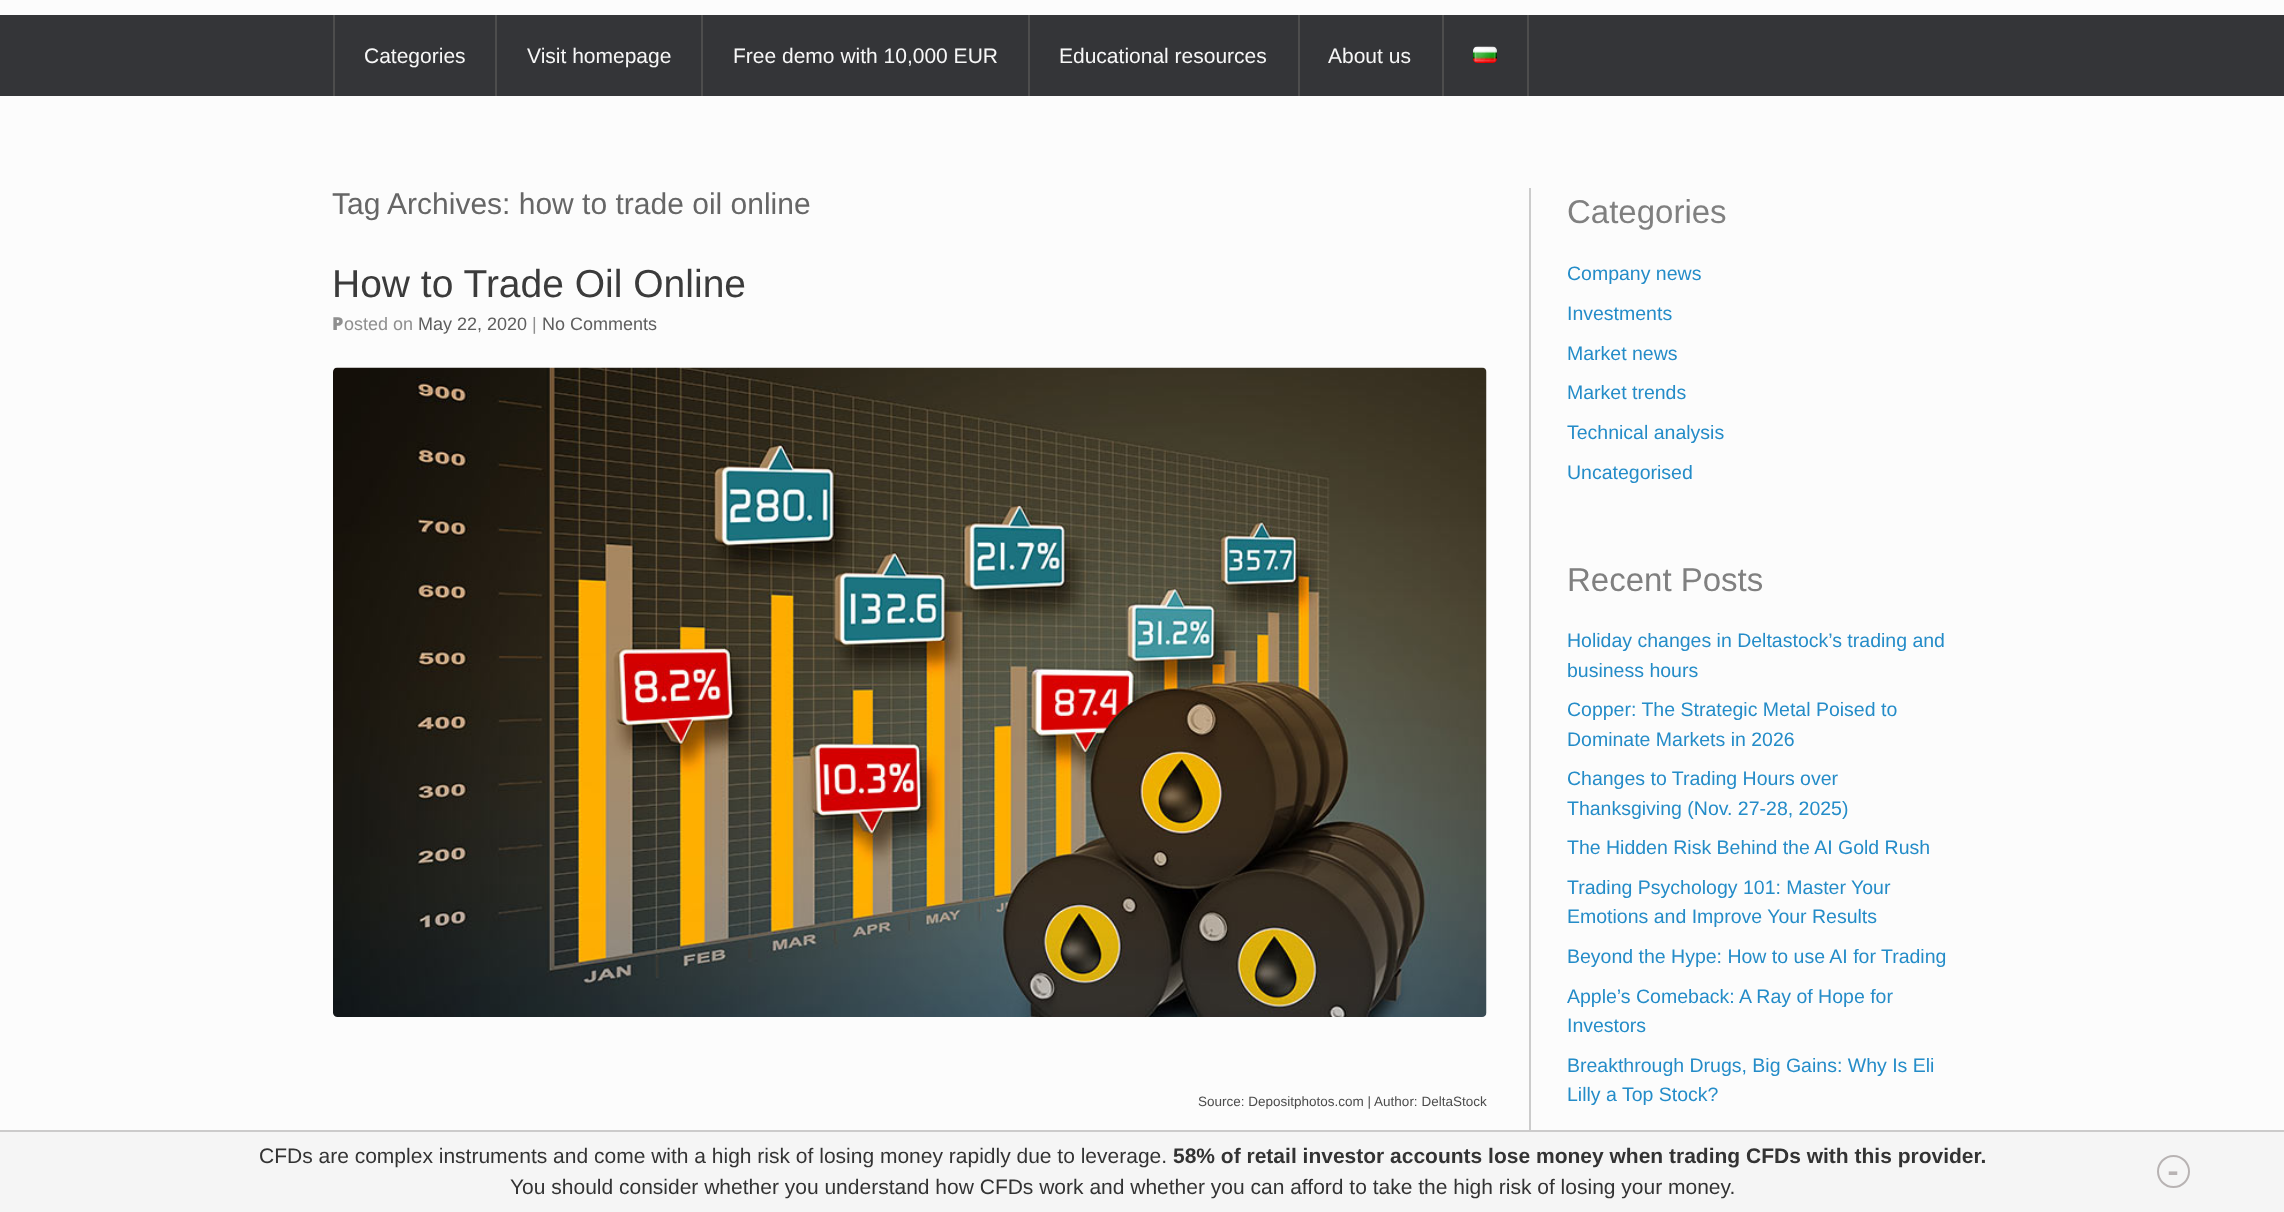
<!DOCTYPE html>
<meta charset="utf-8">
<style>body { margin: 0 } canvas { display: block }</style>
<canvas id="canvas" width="2284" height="1212"></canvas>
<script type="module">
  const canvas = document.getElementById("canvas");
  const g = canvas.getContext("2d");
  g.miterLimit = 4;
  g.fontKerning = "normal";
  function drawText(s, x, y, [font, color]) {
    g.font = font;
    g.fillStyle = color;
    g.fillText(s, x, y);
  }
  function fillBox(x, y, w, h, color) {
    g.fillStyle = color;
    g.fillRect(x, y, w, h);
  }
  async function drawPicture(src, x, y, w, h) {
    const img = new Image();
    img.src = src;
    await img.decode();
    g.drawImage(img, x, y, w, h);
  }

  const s1 = ["21px Liberation Sans", "#F7F7F7"];
  const s2 = ["30px Liberation Sans", "#666666"];
  const s3 = ["39px Liberation Sans", "#3B3B3B"];
  const s4 = ["900 18px Noto Sans", "#8F8F8F"];
  const s5 = ["18px Liberation Sans", "#8F8F8F"];
  const s6 = ["18px Liberation Sans", "#5E5E5E"];
  const s7 = ["13.5px Liberation Sans", "#4C4C4C"];
  const s8 = ["33px Liberation Sans", "#808080"];
  const s9 = ["19.5px Liberation Sans", "#248CC8"];
  const s10 = ["21px Liberation Sans", "#333333"];
  const s11 = ["bold 21px Liberation Sans", "#333333"];
  const s12 = ["bold 30px Liberation Mono", "#B8B3B3"];

  fillBox(0, 0, 2284, 1212, "#FCFCFC");
  fillBox(0, 15, 2284, 81, "#343538");
  fillBox(333, 15, 2, 81, "#4D4D4D");
  fillBox(495, 15, 2, 81, "#4D4D4D");
  drawText("Categories", 364, 63, s1);
  fillBox(701, 15, 2, 81, "#4D4D4D");
  drawText("Visit homepage", 527, 63, s1);
  fillBox(1028, 15, 2, 81, "#4D4D4D");
  drawText("Free demo with 10,000 EUR", 733, 63, s1);
  fillBox(1298, 15, 2, 81, "#4D4D4D");
  drawText("Educational resources", 1059, 63, s1);
  fillBox(1442, 15, 2, 81, "#4D4D4D");
  drawText("About us", 1328, 63, s1);
  fillBox(1527, 15, 2, 81, "#4D4D4D");
  await drawPicture("pic1.png", 1473, 46, 24, 17);
  drawText("Tag Archives: how to trade oil online", 332, 214, s2);
  drawText("How to Trade Oil Online", 332, 297, s3);
  drawText("P", 332, 330, s4);
  drawText("osted on", 344, 330, s5);
  drawText("May 22, 2020", 418, 330, s6);
  drawText("|", 532, 330, s5);
  drawText("No Comments", 542, 330, s6);
  await drawPicture("pic2.png", 333, 367, 1154, 650);
  drawText("Source: Depositphotos.com | Author: DeltaStock", 1198, 1106, s7);
  fillBox(1529, 188, 2, 942, "#CCCCCC");
  drawText("Categories", 1567, 223, s8);
  drawText("Company news", 1567, 280, s9);
  drawText("Investments", 1567, 320, s9);
  drawText("Market news", 1567, 360, s9);
  drawText("Market trends", 1567, 399, s9);
  drawText("Technical analysis", 1567, 439, s9);
  drawText("Uncategorised", 1567, 479, s9);
  drawText("Recent Posts", 1567, 591, s8);
  drawText("Holiday changes in Deltastock’s trading and", 1567, 647, s9);
  drawText("business hours", 1567, 677, s9);
  drawText("Copper: The Strategic Metal Poised to", 1567, 716, s9);
  drawText("Dominate Markets in 2026", 1567, 746, s9);
  drawText("Changes to Trading Hours over", 1567, 785, s9);
  drawText("Thanksgiving (Nov. 27-28, 2025)", 1567, 815, s9);
  drawText("The Hidden Risk Behind the AI Gold Rush", 1567, 854, s9);
  drawText("Trading Psychology 101: Master Your", 1567, 894, s9);
  drawText("Emotions and Improve Your Results", 1567, 923, s9);
  drawText("Beyond the Hype: How to use AI for Trading", 1567, 963, s9);
  drawText("Apple’s Comeback: A Ray of Hope for", 1567, 1003, s9);
  drawText("Investors", 1567, 1032, s9);
  drawText("Breakthrough Drugs, Big Gains: Why Is Eli", 1567, 1072, s9);
  drawText("Lilly a Top Stock?", 1567, 1101, s9);
  fillBox(0, 1132, 2284, 80, "#F5F5F5");
  fillBox(0, 1130, 2284, 2, "#CCCBCB");
  drawText("CFDs are complex instruments and come with a high risk of losing money rapidly due to leverage.", 259, 1163, s10);
  drawText("58% of retail investor accounts lose money when trading CFDs with this provider.", 1173, 1163, s11);
  drawText("You should consider whether you understand how CFDs work and whether you can afford to take the high risk of losing your money.", 510, 1194, s10);
  g.beginPath();
  g.arc(2173.5, 1171.5, 15.5, 0, Math.PI * 2);
  g.strokeStyle = "#B8B3B3";
  g.lineWidth = 2;
  g.stroke();
  drawText("-", 2164, 1181, s12);
</script>
